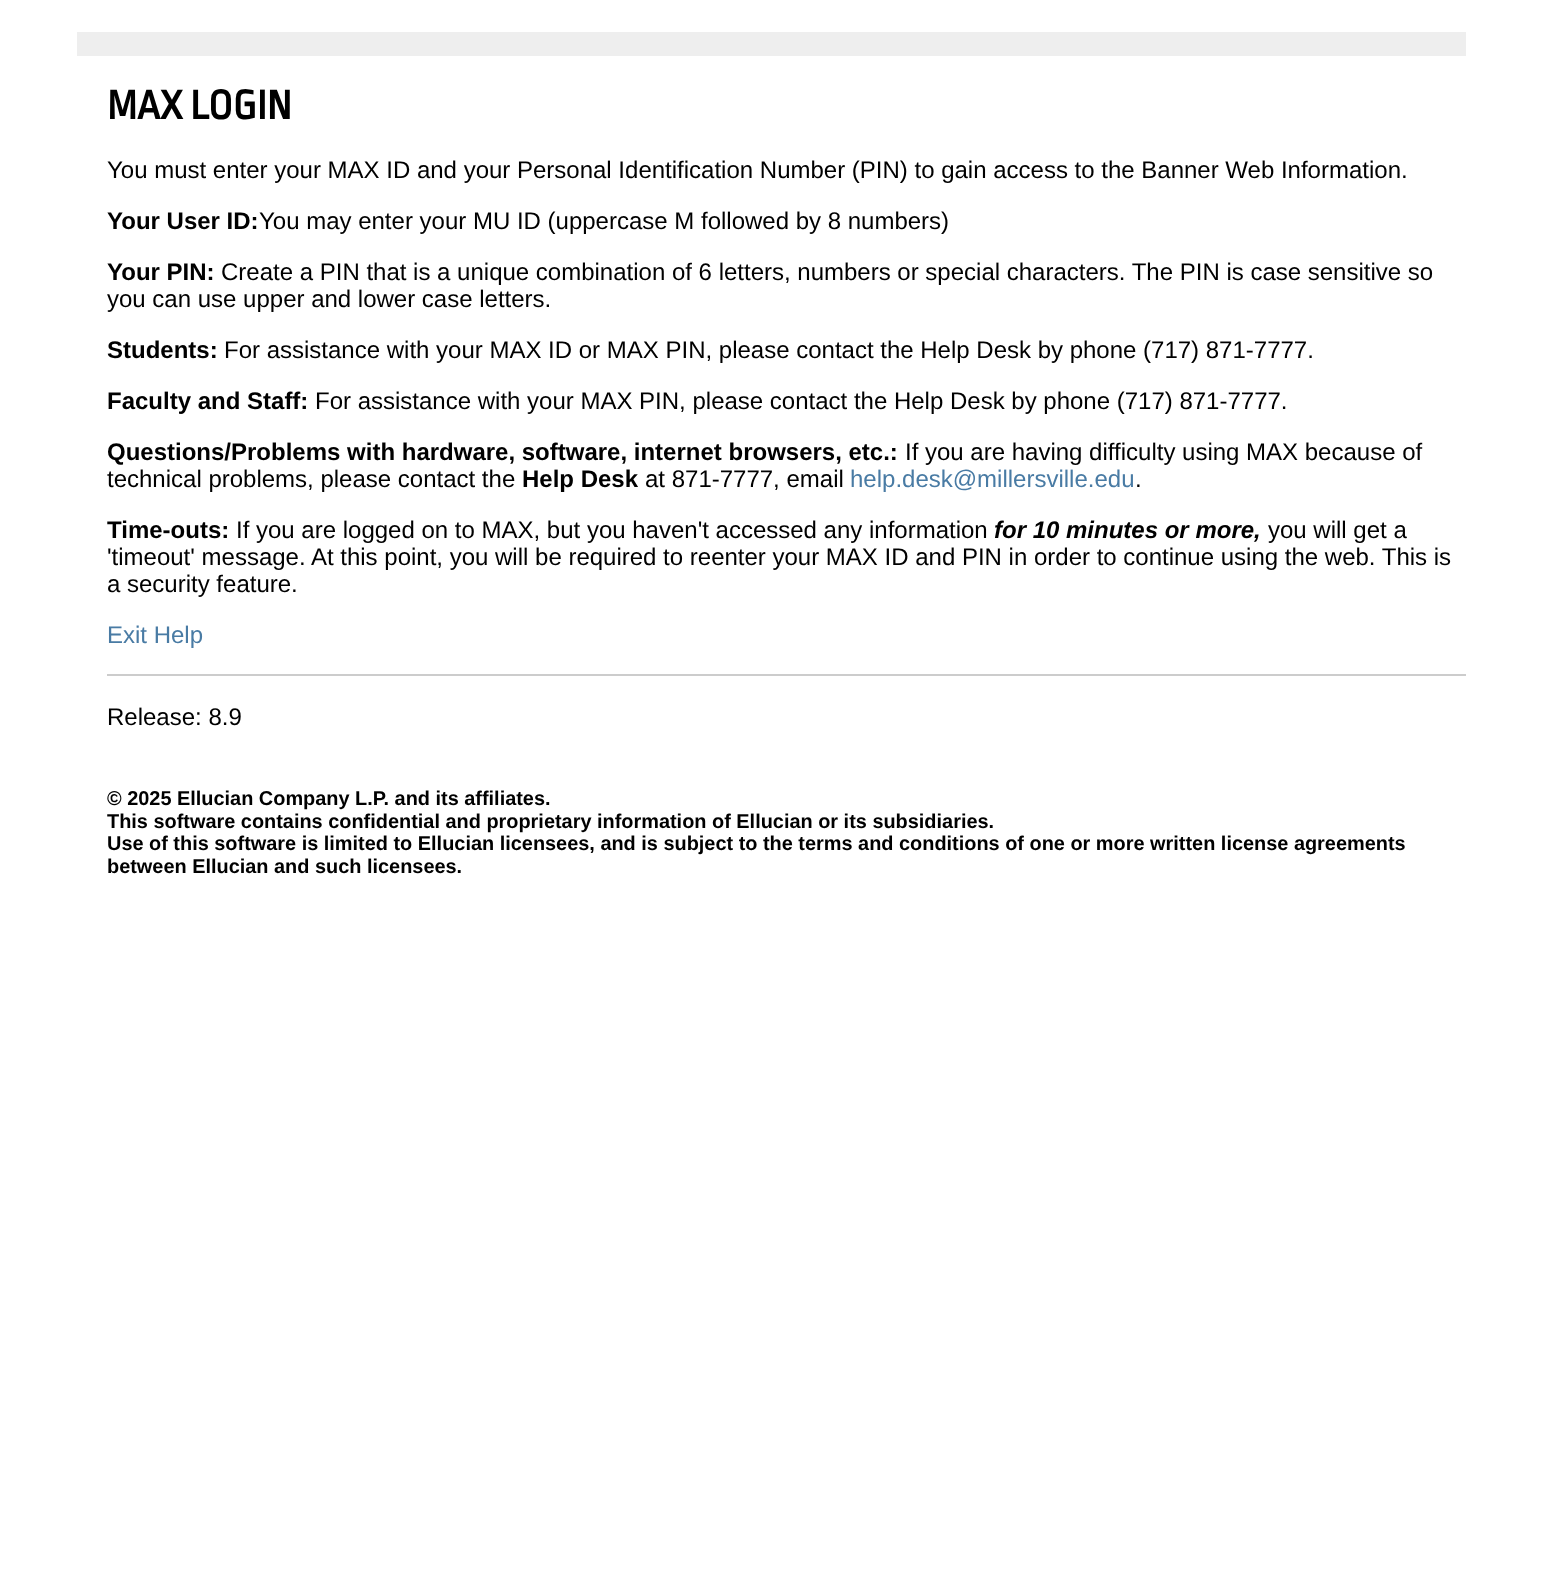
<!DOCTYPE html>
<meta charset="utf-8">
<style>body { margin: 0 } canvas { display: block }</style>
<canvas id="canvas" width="1541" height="1592"></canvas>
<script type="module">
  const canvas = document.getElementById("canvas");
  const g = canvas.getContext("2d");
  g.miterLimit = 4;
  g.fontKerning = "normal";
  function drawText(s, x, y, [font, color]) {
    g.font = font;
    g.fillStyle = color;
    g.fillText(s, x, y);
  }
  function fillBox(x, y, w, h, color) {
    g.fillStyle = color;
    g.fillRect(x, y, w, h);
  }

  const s1 = ["bold 43px Ropa Sans", "#000000"];
  const s2 = ["24px Liberation Sans", "#000000"];
  const s3 = ["bold 24px Liberation Sans", "#000000"];
  const s4 = ["24px Liberation Sans", "#497BA4"];
  const s5 = ["italic bold 24px Liberation Sans", "#000000"];
  const s6 = ["bold 19.92px Liberation Sans", "#000000"];

  fillBox(0, 0, 1541, 1592, "#FFFFFF");
  fillBox(77, 32, 1389, 24, "#EEEEEE");
  drawText("MAX LOGIN", 107, 119, s1);
  drawText("You must enter your MAX ID and your Personal Identification Number (PIN) to gain access to the Banner Web Information.", 107, 178, s2);
  drawText("Your User ID:", 107, 229, s3);
  drawText("You may enter your MU ID (uppercase M followed by 8 numbers)", 259, 229, s2);
  drawText("Your PIN:", 107, 280, s3);
  drawText("Create a PIN that is a unique combination of 6 letters, numbers or special characters. The PIN is case sensitive so", 221, 280, s2);
  drawText("you can use upper and lower case letters.", 107, 307, s2);
  drawText("Students:", 107, 358, s3);
  drawText("For assistance with your MAX ID or MAX PIN, please contact the Help Desk by phone (717) 871-7777.", 224, 358, s2);
  drawText("Faculty and Staff:", 107, 409, s3);
  drawText("For assistance with your MAX PIN, please contact the Help Desk by phone (717) 871-7777.", 315, 409, s2);
  drawText("Questions/Problems with hardware, software, internet browsers, etc.:", 107, 460, s3);
  drawText("If you are having difficulty using MAX because of", 905, 460, s2);
  drawText("technical problems, please contact the", 107, 487, s2);
  drawText("Help Desk", 522, 487, s3);
  drawText("at 871-7777, email", 645, 487, s2);
  drawText("help.desk@millersville.edu", 850, 487, s4);
  drawText(".", 1135, 487, s2);
  drawText("Time-outs:", 107, 538, s3);
  drawText("If you are logged on to MAX, but you haven't accessed any information", 236, 538, s2);
  drawText("for 10 minutes or more,", 994, 538, s5);
  drawText("you will get a", 1268, 538, s2);
  drawText("'timeout' message. At this point, you will be required to reenter your MAX ID and PIN in order to continue using the web. This is", 107, 565, s2);
  drawText("a security feature.", 107, 592, s2);
  drawText("Exit Help", 107, 643, s4);
  fillBox(107, 674, 1359, 2, "#CCCCCC");
  drawText("Release: 8.9", 107, 725, s2);
  drawText("© 2025 Ellucian Company L.P. and its affiliates.", 107, 805, s6);
  drawText("This software contains confidential and proprietary information of Ellucian or its subsidiaries.", 107, 828, s6);
  drawText("Use of this software is limited to Ellucian licensees, and is subject to the terms and conditions of one or more written license agreements", 107, 850, s6);
  drawText("between Ellucian and such licensees.", 107, 873, s6);
</script>
